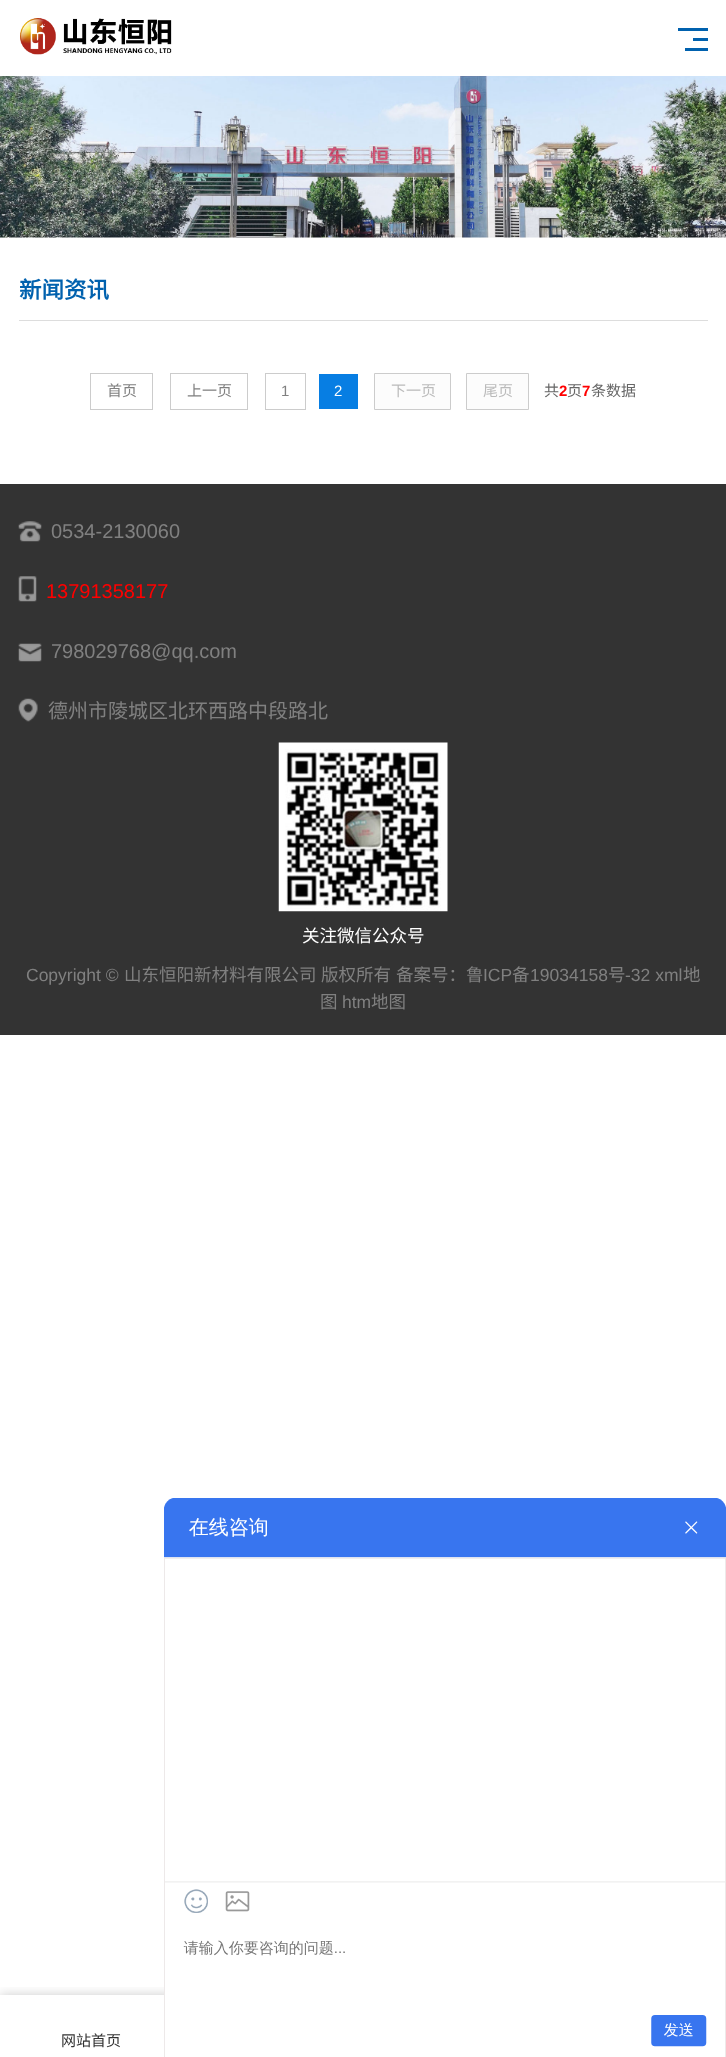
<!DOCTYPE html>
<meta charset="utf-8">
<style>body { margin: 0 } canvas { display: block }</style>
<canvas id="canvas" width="726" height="2057"></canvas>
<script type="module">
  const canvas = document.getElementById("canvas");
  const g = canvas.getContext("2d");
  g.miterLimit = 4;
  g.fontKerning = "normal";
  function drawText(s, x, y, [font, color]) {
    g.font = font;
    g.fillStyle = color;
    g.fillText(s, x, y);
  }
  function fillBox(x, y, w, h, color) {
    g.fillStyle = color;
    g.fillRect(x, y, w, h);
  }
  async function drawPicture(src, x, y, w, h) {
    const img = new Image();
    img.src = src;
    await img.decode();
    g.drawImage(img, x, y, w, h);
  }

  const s1 = ["bold 22.5px Noto Sans CJK SC", "#0061AE"];
  const s2 = ["15px Noto Sans CJK SC", "#808080"];
  const s3 = ["15px Liberation Sans", "#808080"];
  const s4 = ["15px Liberation Sans", "#FFFFFF"];
  const s5 = ["15px Noto Sans CJK SC", "#BBBBBB"];
  const s6 = ["15px Noto Sans CJK SC", "#666666"];
  const s7 = ["bold 15px Liberation Sans", "#FF0000"];
  const s8 = ["20px Liberation Sans", "#808080"];
  const s9 = ["20px Liberation Sans", "#FF0000"];
  const s10 = ["20px Noto Sans CJK SC", "#808080"];
  const s11 = ["17.5px Noto Sans CJK SC", "#FFFFFF"];
  const s12 = ["17.5px Liberation Sans", "#808080"];
  const s13 = ["17.5px Noto Sans CJK SC", "#808080"];
  const s14 = ["15px Noto Sans CJK SC", "#333333"];

  fillBox(0, 0, 726, 2057, "#FFFFFF");
  await drawPicture("pic1.png", 20, 18, 152, 37);
  fillBox(678, 28, 30, 3, "#0061AE");
  fillBox(693, 38, 15, 3, "#0061AE");
  fillBox(685, 48, 23, 3, "#0061AE");
  await drawPicture("pic2.png", 0, 76, 726, 162);
  fillBox(19, 320, 689, 1, "#DDDDDD");
  drawText("新闻资讯", 19, 298, s1);
  g.strokeStyle = "#CCCCCC";
  g.strokeRect(90.5, 373.5, 62, 36);
  drawText("首页", 107, 396, s2);
  g.strokeRect(170.5, 373.5, 77, 36);
  drawText("上一页", 187, 396, s2);
  g.strokeRect(265.5, 373.5, 40, 36);
  drawText("1", 281, 396, s3);
  fillBox(319, 374, 39, 35, "#077EE3");
  drawText("2", 334, 396, s4);
  g.fillStyle = "#FCFCFC";
  g.beginPath();
  g.rect(374.5, 373.5, 76, 36);
  g.fill();
  g.stroke();
  drawText("下一页", 391, 396, s5);
  g.fillStyle = "#FCFCFC";
  g.beginPath();
  g.rect(466.5, 373.5, 62, 36);
  g.fill();
  g.stroke();
  drawText("尾页", 483, 396, s5);
  drawText("共", 544, 396, s6);
  drawText("2", 559, 396, s7);
  drawText("页", 567, 396, s6);
  drawText("7", 582, 396, s7);
  drawText("条数据", 591, 396, s6);
  fillBox(0, 484, 726, 551, "#333333");
  await drawPicture("pic3.png", 18, 521, 24, 21);
  drawText("0534-2130060", 51, 538, s8);
  await drawPicture("pic4.png", 18, 576, 19, 26);
  drawText("13791358177", 46, 598, s9);
  await drawPicture("pic5.png", 18, 643, 24, 19);
  drawText("798029768@qq.com", 51, 658, s8);
  await drawPicture("pic6.png", 18, 698, 20, 24);
  drawText("德州市陵城区北环西路中段路北", 48, 718, s10);
  await drawPicture("pic7.png", 278, 742, 170, 170);
  drawText("关注微信公众号", 302, 942, s11);
  drawText("Copyright ©", 26, 981, s12);
  drawText("山东恒阳新材料有限公司", 124, 981, s13);
  drawText("版权所有", 321, 981, s13);
  drawText("备案号：鲁", 396, 981, s13);
  drawText("ICP", 483, 981, s12);
  drawText("备", 512, 981, s13);
  drawText("19034158", 530, 981, s12);
  drawText("号", 608, 981, s13);
  drawText("-32 xml", 625, 981, s12);
  drawText("地", 683, 981, s13);
  drawText("图", 320, 1008, s13);
  drawText("htm", 342, 1008, s12);
  drawText("地图", 371, 1008, s13);
  g.save();
  g.beginPath();
  g.rect(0, 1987, 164, 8);
  g.clip();
  g.fillStyle = "rgba(0, 0, 0, 0.2)";
  g.filter = "blur(6px)";
  g.beginPath();
  g.rect(0, 1995, 726, 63);
  g.fill();
  g.filter = "none";
  g.restore();
  drawText("网站首页", 61, 2046, s14);
  await drawPicture("pic8.png", 164, 1498, 562, 559);
</script>
